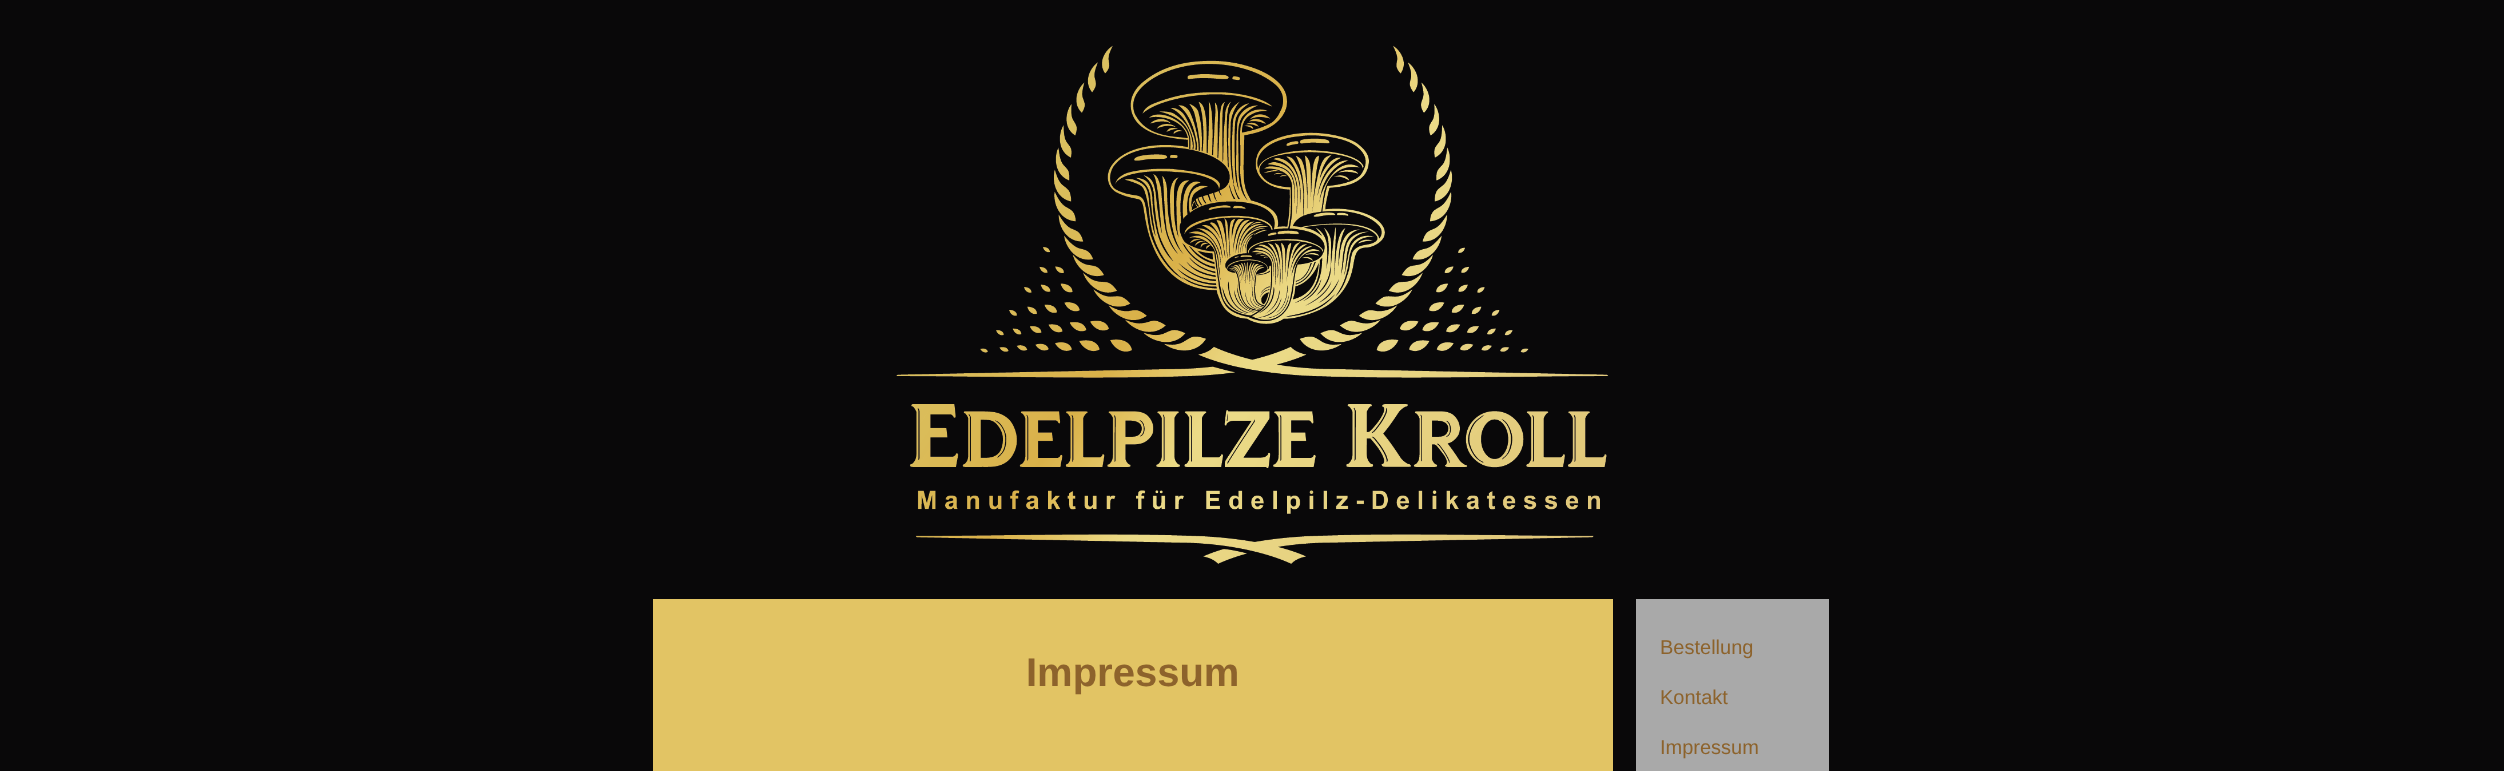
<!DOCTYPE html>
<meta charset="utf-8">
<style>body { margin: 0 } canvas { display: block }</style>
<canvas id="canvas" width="2504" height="771"></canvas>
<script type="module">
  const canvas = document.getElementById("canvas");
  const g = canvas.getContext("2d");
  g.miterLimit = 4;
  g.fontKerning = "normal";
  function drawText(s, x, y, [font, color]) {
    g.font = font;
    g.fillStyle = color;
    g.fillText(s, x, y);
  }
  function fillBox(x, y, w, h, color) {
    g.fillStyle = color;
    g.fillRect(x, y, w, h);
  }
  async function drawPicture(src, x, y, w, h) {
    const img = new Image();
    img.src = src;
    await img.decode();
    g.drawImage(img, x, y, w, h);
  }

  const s1 = ["bold 40px Liberation Sans", "#8D632C"];
  const s2 = ["20px Liberation Sans", "#8D632C"];

  fillBox(0, 0, 2504, 771, "#090809");
  await drawPicture("pic1.png", 896, 45, 713, 519);
  fillBox(653, 599, 960, 172, "#E2C464");
  drawText("Impressum", 1026, 686, s1);
  fillBox(1636, 599, 193, 172, "#A9A9A9");
  drawText("Bestellung", 1660, 654, s2);
  drawText("Kontakt", 1660, 704, s2);
  drawText("Impressum", 1660, 754, s2);
</script>
